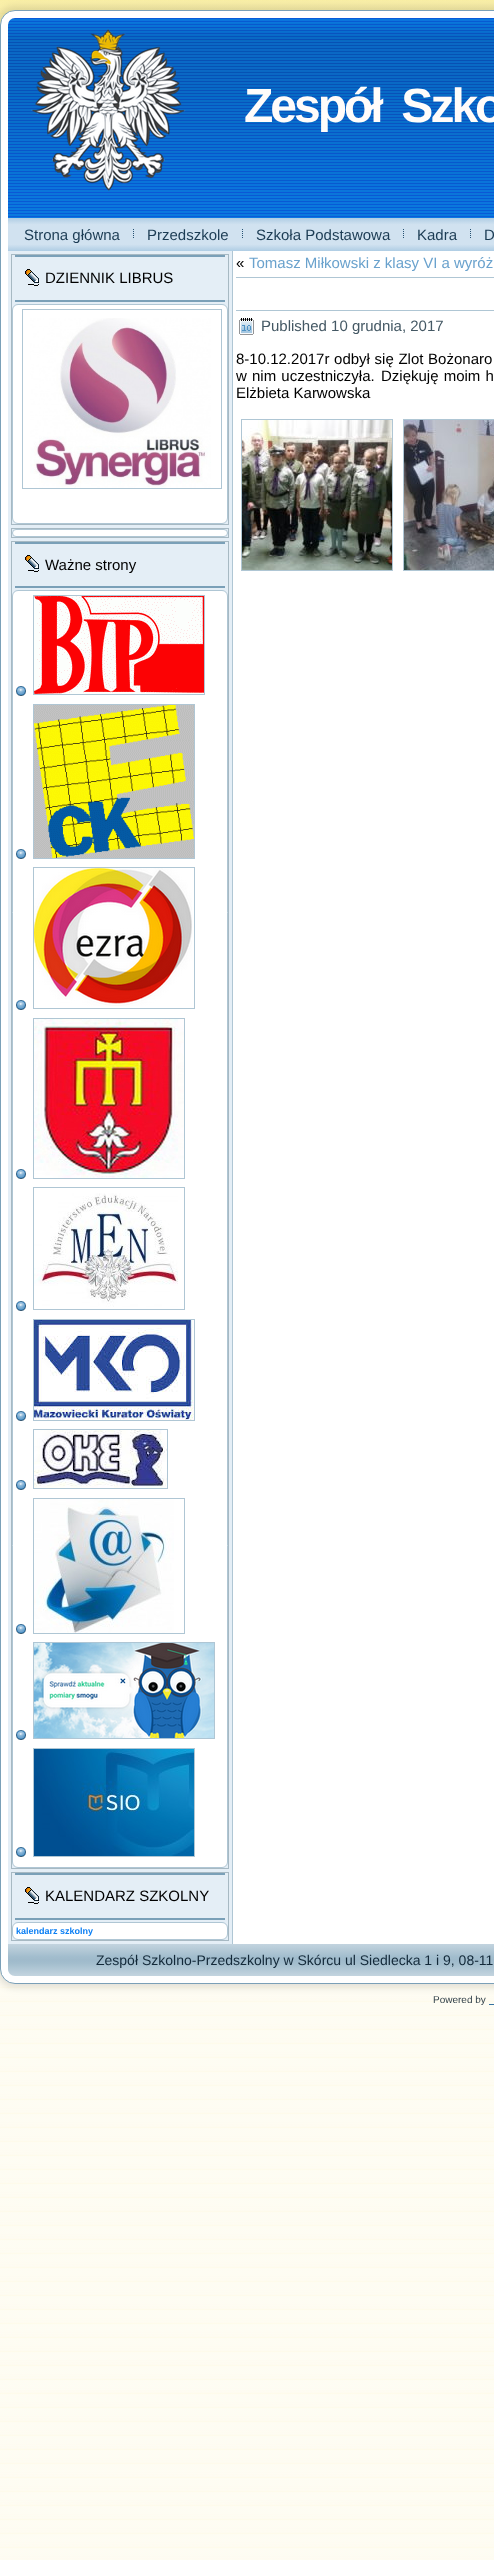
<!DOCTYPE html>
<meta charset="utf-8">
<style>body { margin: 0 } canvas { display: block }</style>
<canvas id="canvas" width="494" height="2560"></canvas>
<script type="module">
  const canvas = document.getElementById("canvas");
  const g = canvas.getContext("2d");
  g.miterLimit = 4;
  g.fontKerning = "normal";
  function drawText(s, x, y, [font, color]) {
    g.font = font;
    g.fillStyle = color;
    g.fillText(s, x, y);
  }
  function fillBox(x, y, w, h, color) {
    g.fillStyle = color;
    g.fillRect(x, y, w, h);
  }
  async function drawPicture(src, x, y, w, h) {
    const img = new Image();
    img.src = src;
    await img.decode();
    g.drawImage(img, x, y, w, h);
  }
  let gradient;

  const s1 = ["bold 48px Liberation Sans", "#FFFCFA"];
  const s2 = ["15px Liberation Sans", "#1C3C54"];
  const s3 = ["15px Liberation Sans", "#000000"];
  const s4 = ["bold 9px Liberation Sans", "#0B7FF4"];
  const s5 = ["15px Liberation Sans", "#6AA2CD"];
  const s6 = ["15px Liberation Sans", "#445864"];
  const s7 = ["14px Liberation Sans", "#132939"];
  const s8 = ["10px Liberation Sans", "#34434C"];

  fillBox(0, 0, 494, 2560, "#FFFFFF");
  await drawPicture("pic1.png", 0, 0, 494, 2560);
  g.fillStyle = "rgba(0, 0, 0, 0.1)";
  g.filter = "blur(3.5px)";
  g.beginPath();
  g.roundRect(-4, 6, 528, 1982, 19);
  g.fill();
  g.filter = "none";
  g.fillStyle = "#FFFFFF";
  g.beginPath();
  g.roundRect(0.5, 10.5, 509, 1973, 14.5);
  g.fill();
  g.strokeStyle = "#7AA0B8";
  g.stroke();
  await drawPicture("pic2.png", 8, 18, 486, 200);
  g.letterSpacing = "-3px";
  drawText("Zespół  Szko", 244, 122, s1);
  gradient = g.createLinearGradient(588, 218, 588, 251);
  gradient.addColorStop(0, "#AFCDE4");
  gradient.addColorStop(0.2, "#D1E2F0");
  gradient.addColorStop(0.8, "#D1E2F0");
  gradient.addColorStop(1, "#AFCDE4");
  g.fillStyle = gradient;
  g.fillRect(8, 218, 486, 33);
  g.letterSpacing = "0px";
  drawText("Strona główna", 24, 240, s2);
  await drawPicture("pic3.png", 133, 229, 1, 9);
  drawText("Przedszkole", 147, 240, s2);
  await drawPicture("pic3.png", 242, 229, 1, 9);
  drawText("Szkoła Podstawowa", 256, 240, s2);
  await drawPicture("pic3.png", 403, 229, 1, 9);
  drawText("Kadra", 417, 240, s2);
  await drawPicture("pic3.png", 470, 229, 1, 9);
  drawText("D", 484, 240, s2);
  fillBox(8, 251, 224, 1693, "#E4EEF6");
  fillBox(232, 251, 1, 1693, "#AFC6D4");
  g.strokeStyle = "#A7B9C3";
  g.strokeRect(11.5, 254.5, 217, 270);
  fillBox(15, 255, 210, 2, "#7AA0B8");
  fillBox(15, 300, 210, 2, "#7AA0B8");
  await drawPicture("pic4.png", 25, 269, 14, 17);
  drawText("DZIENNIK LIBRUS", 45, 283, s3);
  g.fillStyle = "#FFFFFF";
  g.beginPath();
  g.roundRect(12.5, 304.5, 215, 219, 5.5);
  g.fill();
  g.strokeStyle = "#AFC6D4";
  g.stroke();
  g.strokeRect(22.5, 309.5, 199, 179);
  await drawPicture("pic5.png", 30, 318, 181, 170);
  g.strokeStyle = "#A7B9C3";
  g.strokeRect(11.5, 528.5, 217, 9);
  g.beginPath();
  g.roundRect(12.5, 529.5, 215, 7, 3.5);
  g.fill();
  g.strokeStyle = "#AFC6D4";
  g.stroke();
  g.strokeStyle = "#A7B9C3";
  g.strokeRect(11.5, 541.5, 217, 1327);
  fillBox(15, 542, 210, 2, "#7AA0B8");
  fillBox(15, 586, 210, 2, "#7AA0B8");
  await drawPicture("pic4.png", 25, 555, 14, 17);
  drawText("Ważne strony", 45, 570, s3);
  g.fillStyle = "#FFFFFF";
  g.beginPath();
  g.roundRect(12.5, 590.5, 215, 1277, 5.5);
  g.fill();
  g.strokeStyle = "#AFC6D4";
  g.stroke();
  g.strokeRect(33.5, 595.5, 171, 99);
  await drawPicture("pic6.png", 16, 686, 10, 10);
  await drawPicture("pic7.png", 34, 596, 170, 98);
  g.strokeRect(33.5, 704.5, 161, 154);
  await drawPicture("pic6.png", 16, 849, 10, 10);
  await drawPicture("pic8.png", 34, 705, 160, 153);
  g.strokeRect(33.5, 867.5, 161, 141);
  await drawPicture("pic6.png", 16, 1000, 10, 10);
  await drawPicture("pic9.png", 34, 868, 158, 138);
  g.strokeRect(33.5, 1018.5, 151, 160);
  await drawPicture("pic6.png", 16, 1169, 10, 10);
  await drawPicture("pic10.png", 34, 1019, 150, 159);
  g.strokeRect(33.5, 1187.5, 151, 122);
  await drawPicture("pic6.png", 16, 1301, 10, 10);
  await drawPicture("pic11.png", 34, 1193, 144, 114);
  g.strokeRect(33.5, 1319.5, 161, 101);
  await drawPicture("pic6.png", 16, 1411, 10, 10);
  await drawPicture("pic12.png", 34, 1320, 160, 100);
  g.strokeRect(33.5, 1429.5, 134, 59);
  await drawPicture("pic6.png", 16, 1480, 10, 10);
  await drawPicture("pic13.png", 34, 1430, 133, 58);
  g.strokeRect(33.5, 1498.5, 151, 135);
  await drawPicture("pic6.png", 16, 1624, 10, 10);
  await drawPicture("pic14.png", 34, 1499, 140, 134);
  g.strokeRect(33.5, 1642.5, 181, 96);
  await drawPicture("pic6.png", 16, 1730, 10, 10);
  await drawPicture("pic15.png", 34, 1643, 180, 95);
  g.strokeRect(33.5, 1748.5, 161, 108);
  await drawPicture("pic6.png", 16, 1847, 10, 10);
  await drawPicture("pic16.png", 34, 1749, 160, 107);
  g.strokeStyle = "#A7B9C3";
  g.strokeRect(11.5, 1872.5, 217, 68);
  fillBox(15, 1873, 210, 2, "#7AA0B8");
  fillBox(15, 1918, 210, 2, "#7AA0B8");
  await drawPicture("pic4.png", 25, 1887, 14, 17);
  drawText("KALENDARZ SZKOLNY", 45, 1901, s3);
  g.fillStyle = "#FFFFFF";
  g.beginPath();
  g.roundRect(12.5, 1922.5, 215, 17, 5.5);
  g.fill();
  g.strokeStyle = "#AFC6D4";
  g.stroke();
  drawText("kalendarz szkolny", 16, 1934, s4);
  drawText("«", 236, 268, s3);
  drawText("Tomasz Miłkowski z klasy VI a wyróż", 249, 268, s5);
  fillBox(236, 277, 258, 1, "#AFC6D4");
  fillBox(236, 310, 258, 1, "#AFC6D4");
  await drawPicture("pic17.png", 239, 318, 15, 17);
  drawText("Published 10 grudnia, 2017", 261, 331, s6);
  g.wordSpacing = "0.5px";
  drawText("8-10.12.2017r odbył się Zlot Bożonaro", 236, 364, s3);
  g.wordSpacing = "1px";
  drawText("w nim uczestniczyła.", 236, 381, s3);
  drawText("Dziękuję moim h", 381, 381, s3);
  g.wordSpacing = "0px";
  drawText("Elżbieta Karwowska", 236, 398, s3);
  g.strokeRect(241.5, 419.5, 151, 151);
  await drawPicture("pic18.png", 242, 420, 150, 150);
  g.strokeRect(403.5, 419.5, 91, 151);
  await drawPicture("pic19.png", 404, 420, 90, 150);
  gradient = g.createLinearGradient(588, 1944, 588, 1976);
  gradient.addColorStop(0, "#C3D4DF");
  gradient.addColorStop(0.4, "#A2BDCD");
  gradient.addColorStop(0.5, "#9FBACB");
  gradient.addColorStop(0.6, "#A2BDCD");
  gradient.addColorStop(1, "#C3D4DF");
  g.fillStyle = gradient;
  g.beginPath();
  g.moveTo(8, 1944);
  g.lineTo(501, 1944);
  g.lineTo(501, 1969);
  g.bezierCurveTo(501, 1973, 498, 1976, 494, 1976);
  g.lineTo(15, 1976);
  g.bezierCurveTo(11, 1976, 8, 1973, 8, 1969);
  g.closePath();
  g.fill();
  drawText("Zespół Szkolno-Przedszkolny w Skórcu ul Siedlecka 1 i 9, 08-11", 96, 1965, s7);
  drawText("Powered by", 433, 2003, s8);
  fillBox(489, 2004, 5, 1, "#3672A1");
</script>
